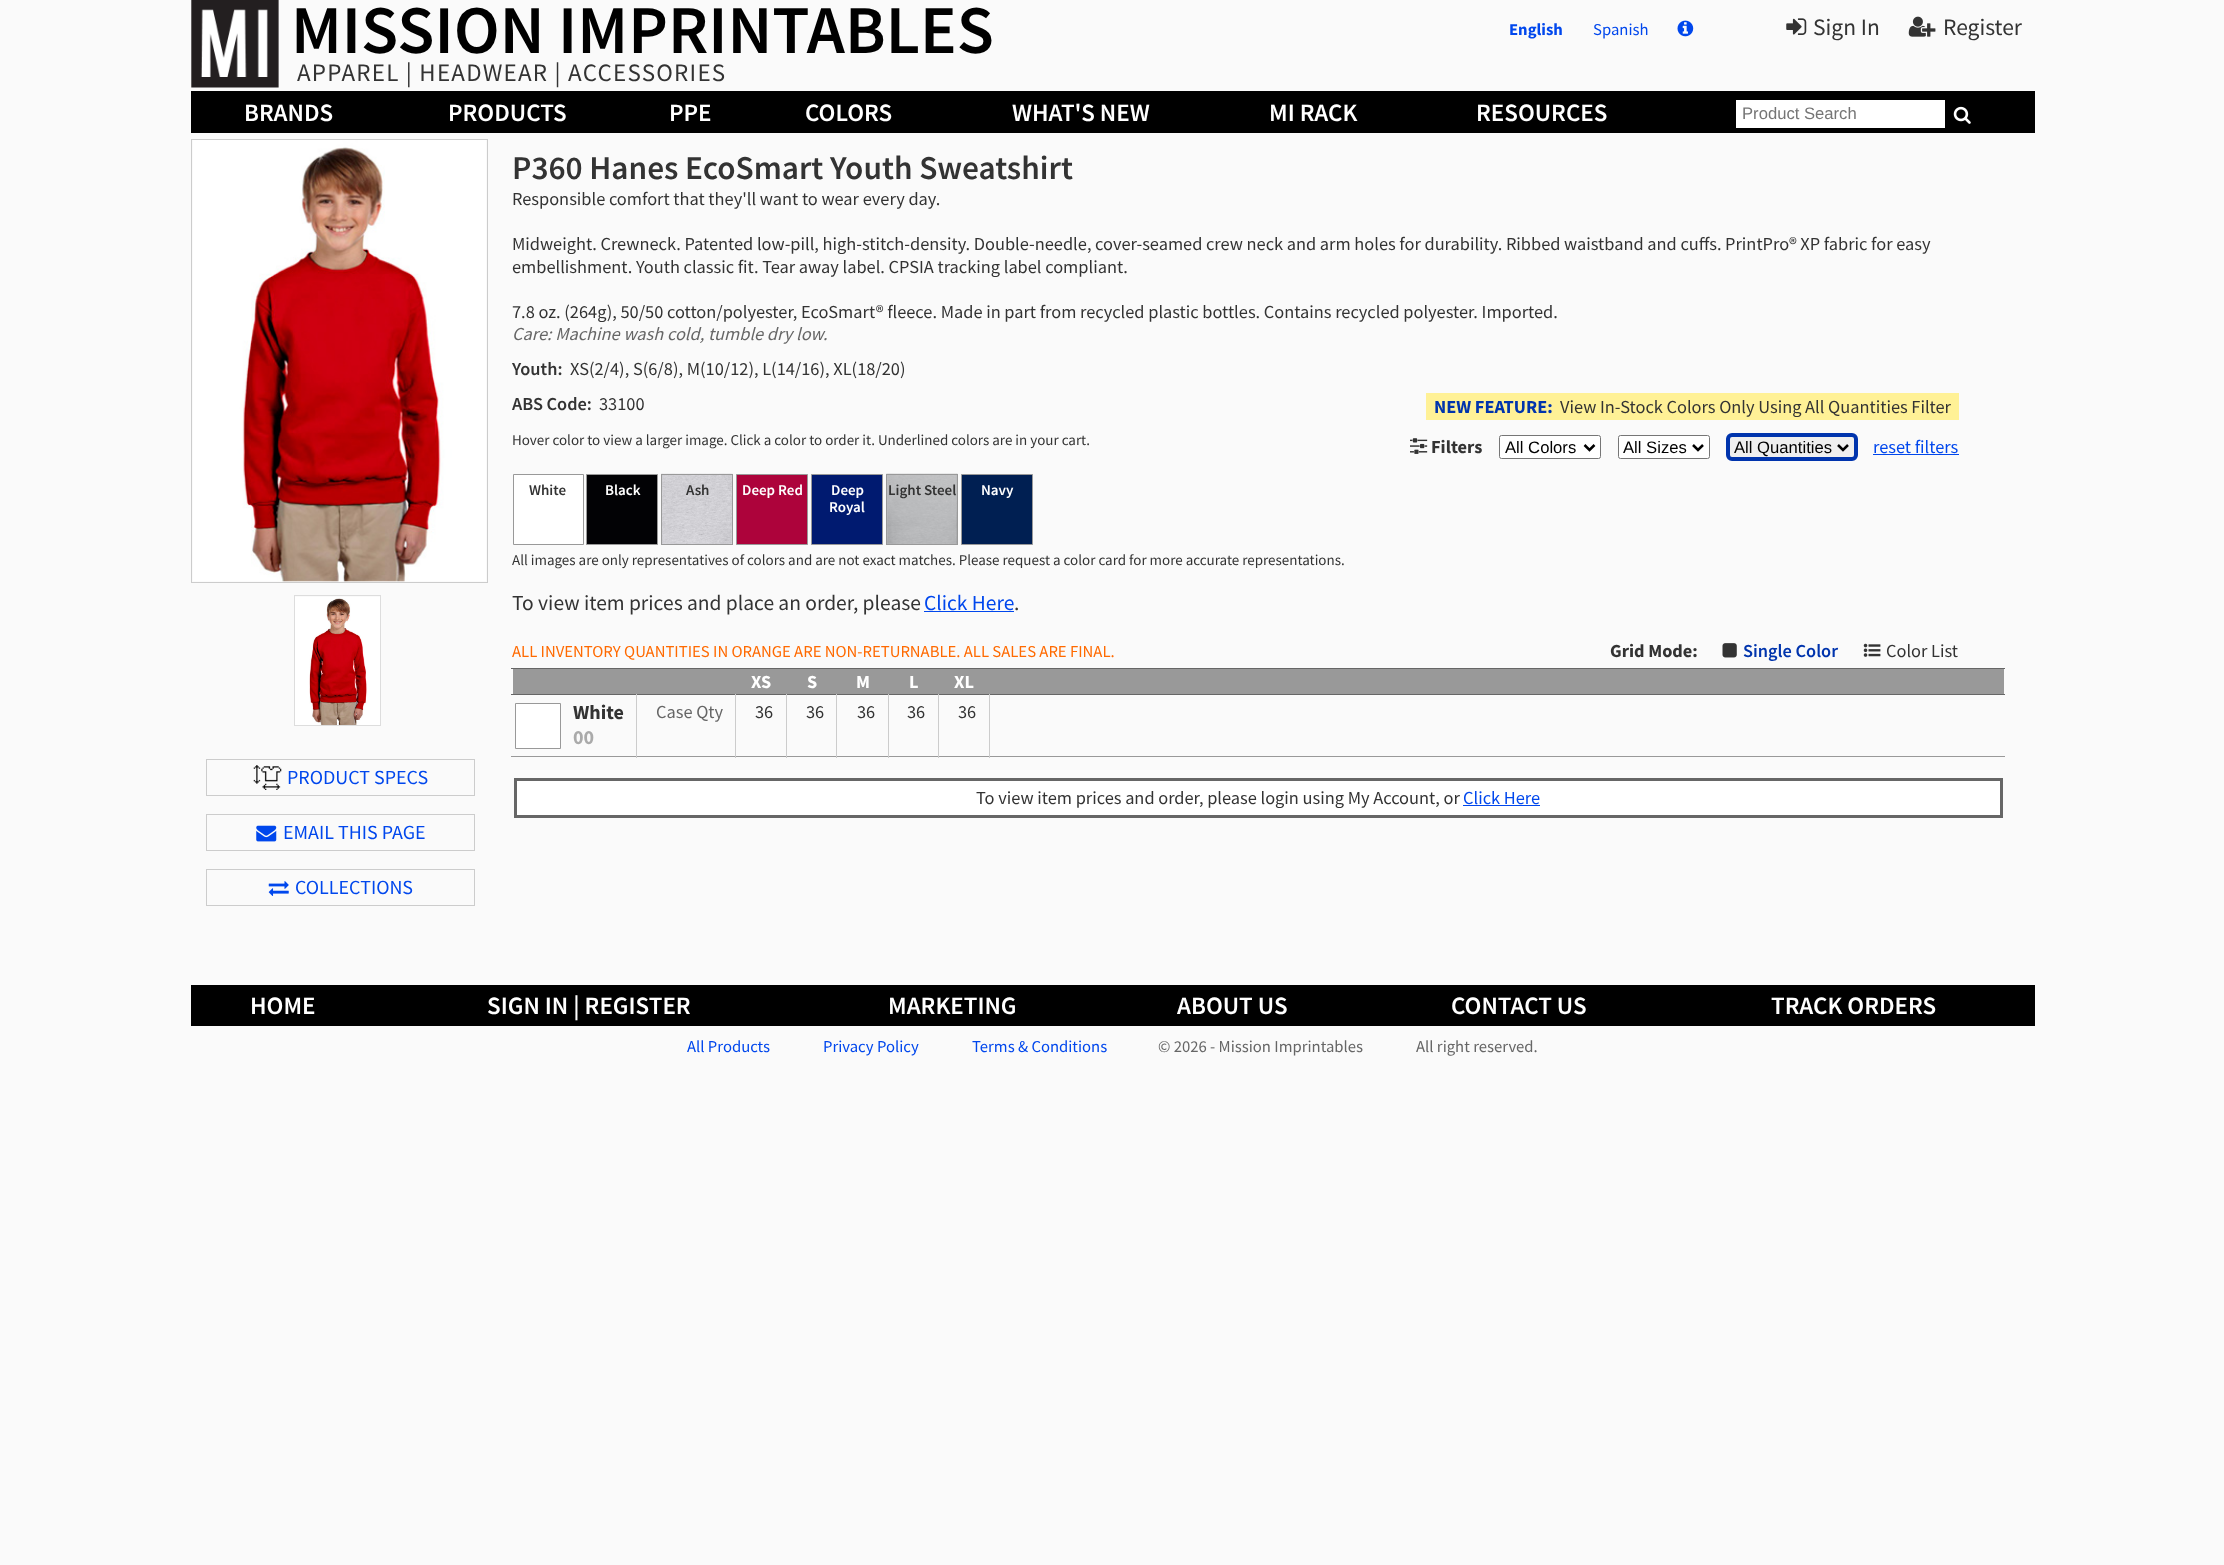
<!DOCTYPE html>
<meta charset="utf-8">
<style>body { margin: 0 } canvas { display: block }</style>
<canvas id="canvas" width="2224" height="1565"></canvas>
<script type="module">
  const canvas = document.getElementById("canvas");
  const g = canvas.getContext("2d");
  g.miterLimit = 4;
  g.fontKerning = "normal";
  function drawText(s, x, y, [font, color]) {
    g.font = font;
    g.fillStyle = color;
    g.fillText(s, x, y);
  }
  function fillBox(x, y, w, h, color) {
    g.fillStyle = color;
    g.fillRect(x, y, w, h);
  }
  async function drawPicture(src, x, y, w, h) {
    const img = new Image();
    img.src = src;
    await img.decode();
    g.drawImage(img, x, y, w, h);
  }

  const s1 = ["600 68.25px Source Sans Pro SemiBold", "#000000"];
  const s2 = ["25px Source Sans Pro", "#333333"];
  const s3 = ["bold 16.65px Source Sans Pro", "#0047ED"];
  const s4 = ["16.65px Source Sans Pro", "#0047ED"];
  const s5 = ["23.5px Source Sans Pro", "#333333"];
  const s6 = ["600 25px Source Sans Pro SemiBold", "#FFFFFF"];
  const s7 = ["16.65px Liberation Sans", "#757575"];
  const s8 = ["600 33.3px Source Sans Pro SemiBold", "#333333"];
  const s9 = ["18.33px Source Sans Pro", "#333333"];
  const s10 = ["italic 18.33px Source Sans Pro", "#666666"];
  const s11 = ["600 18.33px Source Sans Pro SemiBold", "#333333"];
  const s12 = ["bold 18.33px Source Sans Pro", "#0034AD"];
  const s13 = ["15px Source Sans Pro", "#333333"];
  const s14 = ["bold 18.33px Source Sans Pro", "#333333"];
  const s15 = ["16.65px Liberation Sans", "#000000"];
  const s16 = ["18.33px Source Sans Pro", "#0047ED"];
  const s17 = ["600 15px Source Sans Pro SemiBold", "#333333"];
  const s18 = ["600 15px Source Sans Pro SemiBold", "#FFFFFF"];
  const s19 = ["21.5px Source Sans Pro", "#333333"];
  const s20 = ["21.5px Source Sans Pro", "#0047ED"];
  const s21 = ["16.65px Source Sans Pro", "#FF6A00"];
  const s22 = ["600 18.33px Source Sans Pro SemiBold", "#0034AD"];
  const s23 = ["bold 18.33px Source Sans Pro", "#FFFFFF"];
  const s24 = ["bold 20px Source Sans Pro", "#333333"];
  const s25 = ["bold 20px Source Sans Pro", "#AAAAAA"];
  const s26 = ["18.33px Source Sans Pro", "#666666"];
  const s27 = ["20px Source Sans Pro", "#0047ED"];
  const s28 = ["16.65px Source Sans Pro", "#666666"];

  fillBox(0, 0, 2224, 1565, "#FAFAFA");
  await drawPicture("pic1.png", 191, 0, 88, 88);
  drawText("MISSION IMPRINTABLES", 291, 53, s1);
  g.letterSpacing = "1.25px";
  drawText("APPAREL | HEADWEAR | ACCESSORIES", 297, 81, s2);
  g.letterSpacing = "0px";
  drawText("English", 1509, 35, s3);
  drawText("Spanish", 1593, 35, s4);
  await drawPicture("pic2.png", 1677, 20, 17, 17);
  await drawPicture("pic3.png", 1786, 18, 21, 17);
  drawText("Sign In", 1813, 35, s5);
  await drawPicture("pic4.png", 1908, 16, 28, 21);
  drawText("Register", 1943, 35, s5);
  fillBox(191, 91, 1844, 42, "#000000");
  drawText("BRANDS", 244, 121, s6);
  drawText("PRODUCTS", 448, 121, s6);
  drawText("PPE", 669, 121, s6);
  drawText("COLORS", 805, 121, s6);
  drawText("WHAT'S NEW", 1012, 121, s6);
  drawText("MI RACK", 1269, 121, s6);
  drawText("RESOURCES", 1476, 121, s6);
  fillBox(1736, 100, 209, 28, "#FFFFFF");
  drawText("Product Search", 1742, 119, s7);
  await drawPicture("pic5.png", 1953, 106, 18, 18);
  drawText("P360 Hanes EcoSmart Youth Sweatshirt", 512, 179, s8);
  drawText("Responsible comfort that they'll want to wear every day.", 512, 205, s9);
  drawText("Midweight. Crewneck. Patented low-pill, high-stitch-density. Double-needle, cover-seamed crew neck and arm holes for durability. Ribbed waistband and cuffs. PrintPro® XP fabric for easy", 512, 250, s9);
  drawText("embellishment. Youth classic fit. Tear away label. CPSIA tracking label compliant.", 512, 273, s9);
  drawText("7.8 oz. (264g), 50/50 cotton/polyester, EcoSmart® fleece. Made in part from recycled plastic bottles. Contains recycled polyester. Imported.", 512, 318, s9);
  drawText("Care: Machine wash cold, tumble dry low.", 512, 340, s10);
  drawText("Youth:", 512, 375, s11);
  drawText("XS(2/4), S(6/8), M(10/12), L(14/16), XL(18/20)", 570, 375, s9);
  drawText("ABS Code:", 512, 410, s11);
  drawText("33100", 599, 410, s9);
  fillBox(1426, 393, 533, 27, "#FFF196");
  drawText("NEW FEATURE:", 1434, 413, s12);
  drawText("View In-Stock Colors Only Using All Quantities Filter", 1560, 413, s9);
  drawText("Hover color to view a larger image. Click a color to order it. Underlined colors are in your cart.", 512, 445, s13);
  await drawPicture("pic6.png", 1410, 438, 18, 16);
  drawText("Filters", 1431, 453, s14);
  g.fillStyle = "#FFFFFF";
  g.beginPath();
  g.roundRect(1499.5, 435.5, 101, 23, 2);
  g.fill();
  g.strokeStyle = "#767676";
  g.stroke();
  g.beginPath();
  g.moveTo(1584.5, 445);
  g.lineTo(1589.5, 450);
  g.lineTo(1594.5, 445);
  g.strokeStyle = "#000000";
  g.lineWidth = 2.5;
  g.stroke();
  drawText("All Colors", 1505, 453, s15);
  g.fillStyle = "#FFFFFF";
  g.beginPath();
  g.roundRect(1618.5, 435.5, 91, 23, 2);
  g.fill();
  g.strokeStyle = "#767676";
  g.lineWidth = 1;
  g.stroke();
  g.beginPath();
  g.moveTo(1693, 445);
  g.lineTo(1698, 450);
  g.lineTo(1703, 445);
  g.strokeStyle = "#000000";
  g.lineWidth = 2.5;
  g.stroke();
  drawText("All Sizes", 1623, 453, s15);
  g.fillStyle = "#EFEFEF";
  g.beginPath();
  g.roundRect(1728, 435, 128, 24, 4);
  g.fill();
  g.strokeStyle = "#0034AD";
  g.lineWidth = 4;
  g.stroke();
  g.beginPath();
  g.moveTo(1838, 445);
  g.lineTo(1843, 450);
  g.lineTo(1848, 445);
  g.strokeStyle = "#000000";
  g.lineWidth = 2.5;
  g.stroke();
  drawText("All Quantities", 1734, 453, s15);
  drawText("reset filters", 1873, 453, s16);
  fillBox(1873, 454, 86, 1, "#0047ED");
  g.fillStyle = "#FFFFFF";
  g.beginPath();
  g.rect(513.5, 474.5, 70, 70);
  g.fill();
  g.strokeStyle = "#999999";
  g.lineWidth = 1;
  g.stroke();
  drawText("White", 529, 495, s17);
  g.fillStyle = "#020205";
  g.beginPath();
  g.rect(586.5, 474.5, 71, 70);
  g.fill();
  g.stroke();
  drawText("Black", 605, 495, s18);
  await drawPicture("pic7.png", 661, 473, 72, 71);
  g.strokeRect(661.5, 474.5, 71, 70);
  drawText("Ash", 686, 495, s17);
  g.fillStyle = "#AD033B";
  g.beginPath();
  g.rect(736.5, 474.5, 71, 70);
  g.fill();
  g.stroke();
  drawText("Deep Red", 742, 495, s18);
  g.fillStyle = "#001A70";
  g.beginPath();
  g.rect(811.5, 474.5, 71, 70);
  g.fill();
  g.stroke();
  drawText("Deep", 831, 495, s18);
  drawText("Royal", 829, 512, s18);
  await drawPicture("pic8.png", 886, 473, 72, 71);
  g.strokeRect(886.5, 474.5, 71, 70);
  drawText("Light Steel", 888, 495, s17);
  g.fillStyle = "#001F52";
  g.beginPath();
  g.rect(961.5, 474.5, 71, 70);
  g.fill();
  g.stroke();
  drawText("Navy", 981, 495, s18);
  drawText("All images are only representatives of colors and are not exact matches. Please request a color card for more accurate representations.", 512, 565, s13);
  drawText("To view item prices and place an order, please", 512, 610, s19);
  drawText("Click Here", 924, 610, s20);
  fillBox(924, 611, 90, 1, "#0047ED");
  drawText(".", 1014, 610, s19);
  drawText("ALL INVENTORY QUANTITIES IN ORANGE ARE NON-RETURNABLE. ALL SALES ARE FINAL.", 512, 657, s21);
  drawText("Grid Mode:", 1610, 657, s14);
  await drawPicture("pic9.png", 1722, 643, 15, 15);
  drawText("Single Color", 1743, 657, s22);
  await drawPicture("pic10.png", 1863, 643, 18, 14);
  drawText("Color List", 1886, 657, s9);
  fillBox(513, 669, 1491, 25, "#999999");
  fillBox(511, 668, 1494, 1, "#666666");
  fillBox(511, 694, 1494, 1, "#666666");
  drawText("XS", 751, 688, s23);
  drawText("S", 807, 688, s23);
  drawText("M", 856, 688, s23);
  drawText("L", 909, 688, s23);
  drawText("XL", 954, 688, s23);
  fillBox(511, 756, 1494, 1, "#999999");
  g.fillStyle = "#FFFFFF";
  g.beginPath();
  g.rect(515.5, 703.5, 45, 45);
  g.fill();
  g.stroke();
  drawText("White", 573, 719, s24);
  drawText("00", 573, 744, s25);
  fillBox(636, 694, 1, 64, "#CCCCCC");
  drawText("Case Qty", 656, 718, s26);
  fillBox(735, 694, 1, 64, "#CCCCCC");
  drawText("36", 755, 718, s9);
  fillBox(786, 694, 1, 64, "#CCCCCC");
  drawText("36", 806, 718, s9);
  fillBox(836, 694, 1, 64, "#CCCCCC");
  drawText("36", 857, 718, s9);
  fillBox(888, 694, 1, 64, "#CCCCCC");
  drawText("36", 907, 718, s9);
  fillBox(938, 694, 1, 64, "#CCCCCC");
  drawText("36", 958, 718, s9);
  fillBox(989, 694, 1, 64, "#CCCCCC");
  g.fillStyle = "#FFFFFF";
  g.beginPath();
  g.rect(515.5, 779.5, 1486, 37);
  g.fill();
  g.strokeStyle = "#666666";
  g.lineWidth = 3;
  g.stroke();
  drawText("To view item prices and order, please login using My Account, or", 976, 804, s9);
  drawText("Click Here", 1463, 804, s16);
  fillBox(1463, 805, 77, 1, "#0047ED");
  g.strokeStyle = "#CCCCCC";
  g.lineWidth = 1;
  g.strokeRect(191.5, 139.5, 296, 443);
  await drawPicture("pic11.png", 193, 140, 293, 442);
  g.strokeStyle = "#DDDDDD";
  g.strokeRect(294.5, 595.5, 86, 130);
  await drawPicture("pic12.png", 295, 597, 85, 128);
  g.strokeStyle = "#CCCCCC";
  g.strokeRect(206.5, 759.5, 268, 36);
  await drawPicture("pic13.png", 253, 765, 29, 25);
  drawText("PRODUCT SPECS", 287, 784, s27);
  g.strokeRect(206.5, 814.5, 268, 36);
  await drawPicture("pic14.png", 256, 825, 21, 17);
  drawText("EMAIL THIS PAGE", 283, 839, s27);
  g.strokeRect(206.5, 869.5, 268, 36);
  await drawPicture("pic15.png", 268, 881, 21, 15);
  drawText("COLLECTIONS", 295, 894, s27);
  fillBox(191, 985, 1844, 41, "#000000");
  drawText("HOME", 250, 1014, s6);
  drawText("SIGN IN | REGISTER", 487, 1014, s6);
  drawText("MARKETING", 888, 1014, s6);
  drawText("ABOUT US", 1177, 1014, s6);
  drawText("CONTACT US", 1451, 1014, s6);
  drawText("TRACK ORDERS", 1771, 1014, s6);
  drawText("All Products", 687, 1052, s4);
  drawText("Privacy Policy", 823, 1052, s4);
  drawText("Terms & Conditions", 972, 1052, s4);
  drawText("© 2026 - Mission Imprintables", 1158, 1052, s28);
  drawText("All right reserved.", 1416, 1052, s28);
</script>
